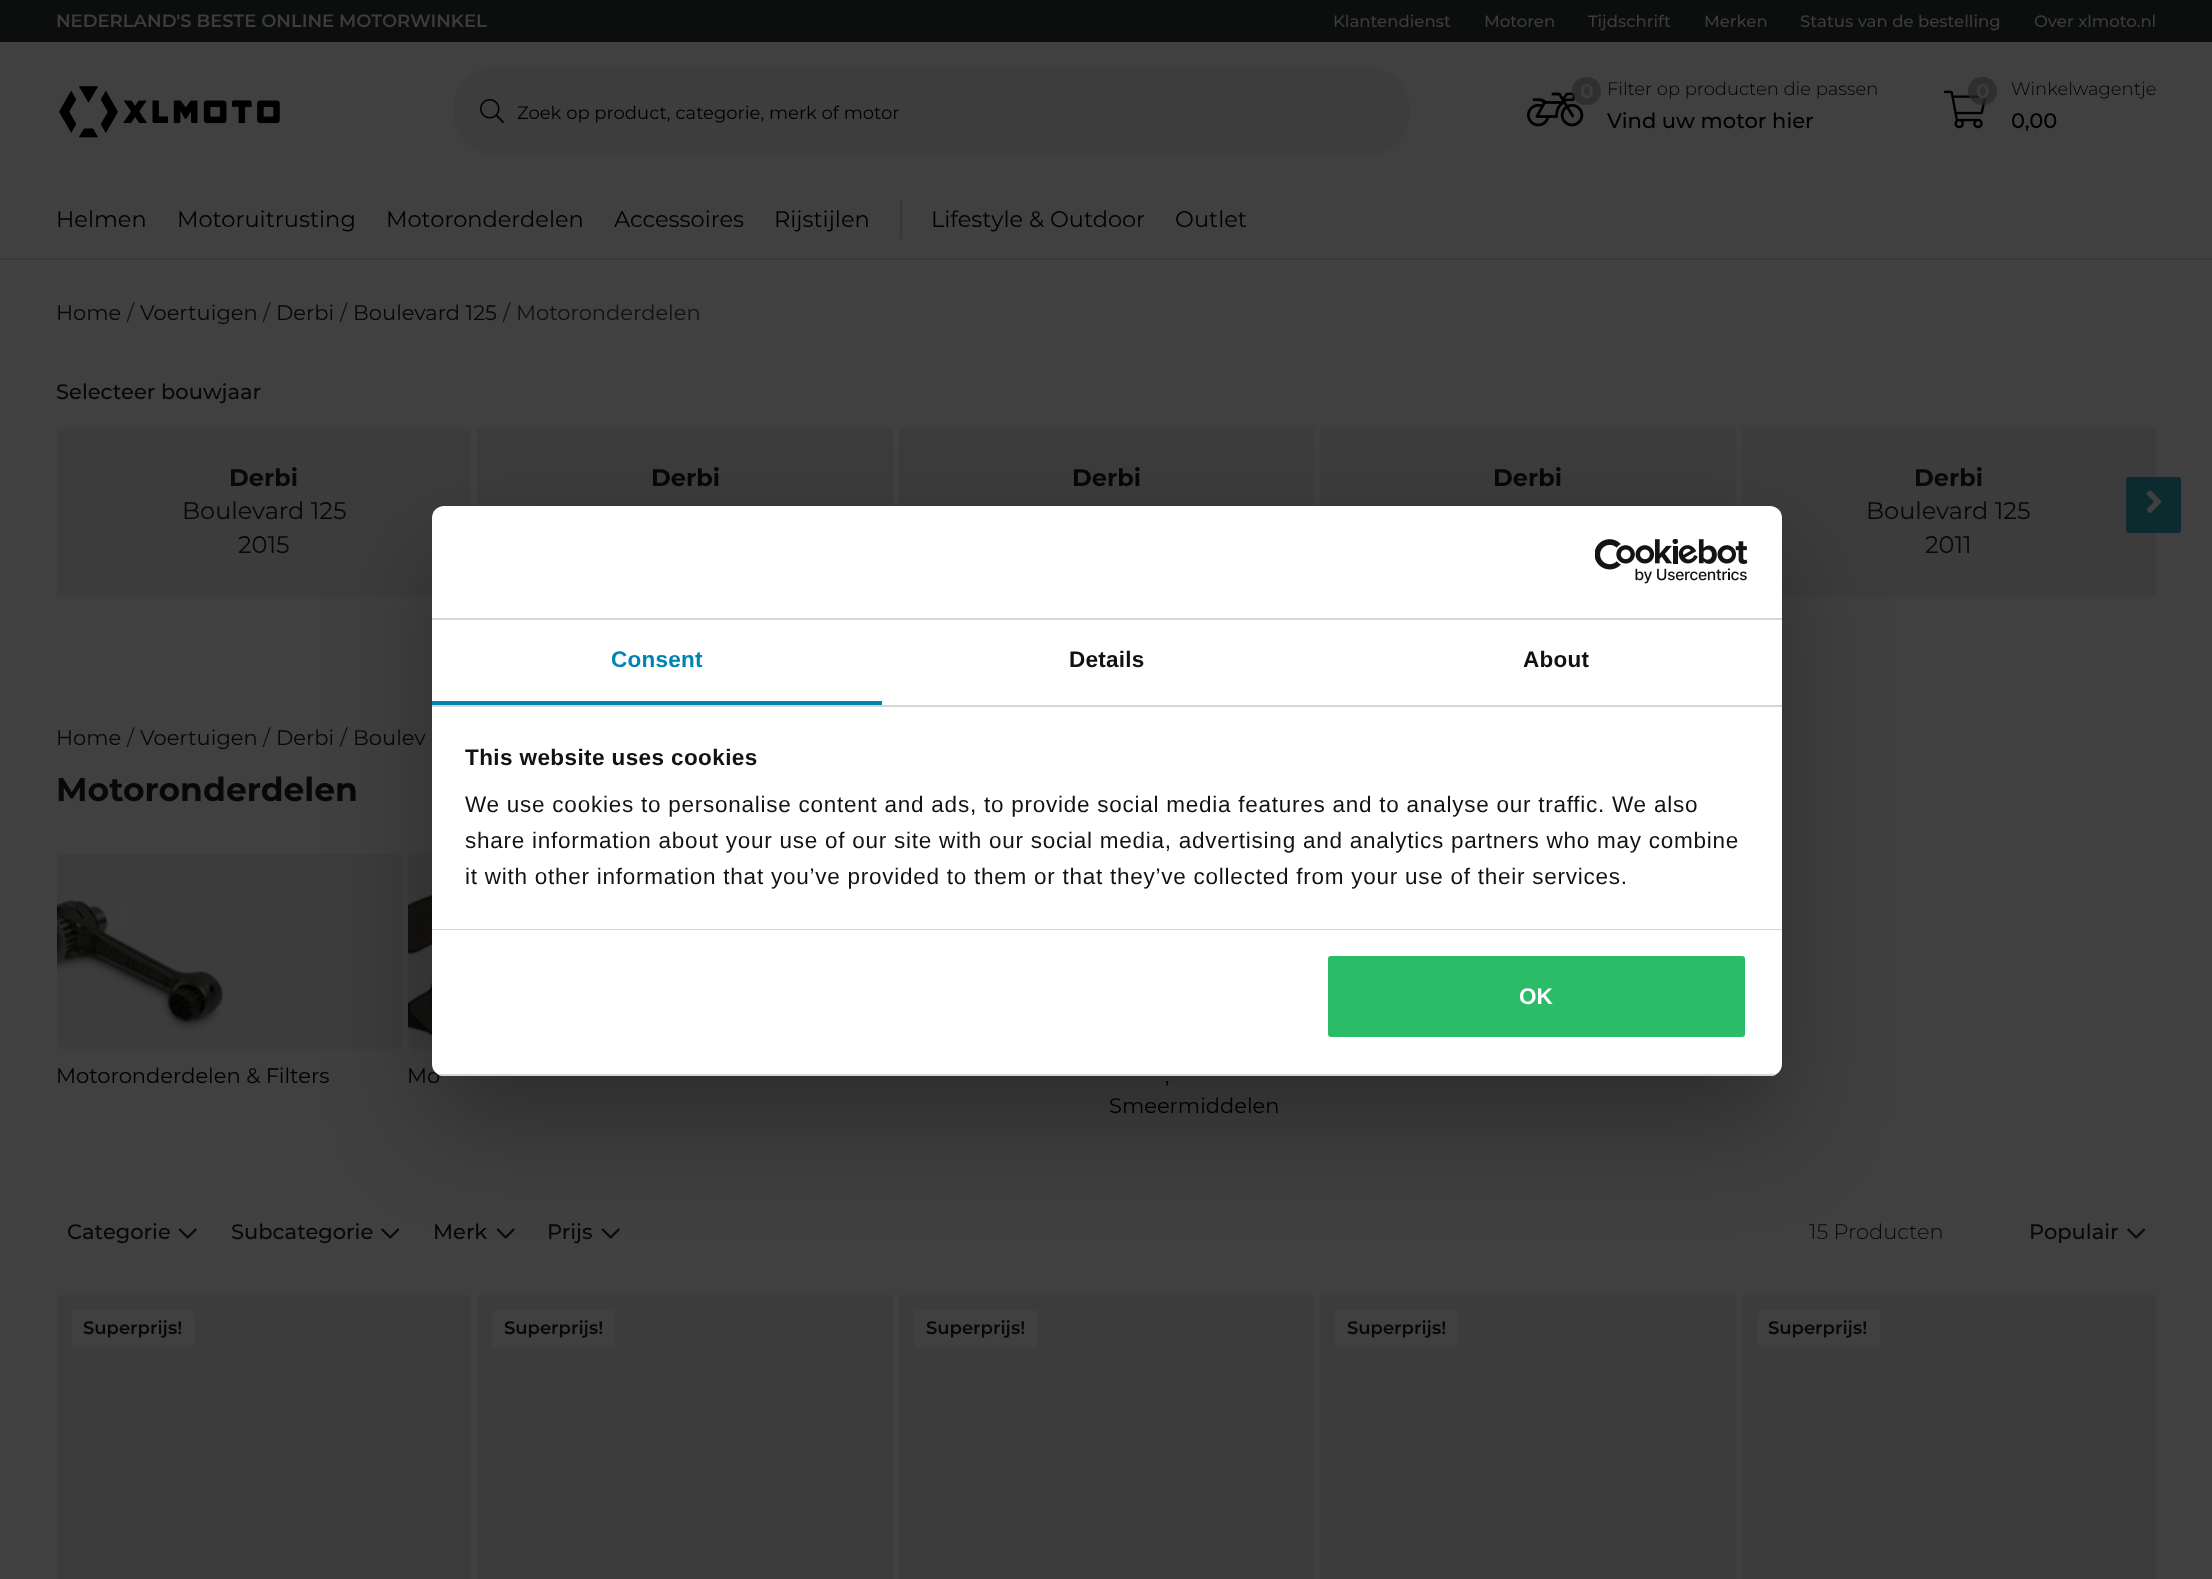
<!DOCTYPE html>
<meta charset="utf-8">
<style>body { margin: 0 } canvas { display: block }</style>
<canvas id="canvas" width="2212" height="1579"></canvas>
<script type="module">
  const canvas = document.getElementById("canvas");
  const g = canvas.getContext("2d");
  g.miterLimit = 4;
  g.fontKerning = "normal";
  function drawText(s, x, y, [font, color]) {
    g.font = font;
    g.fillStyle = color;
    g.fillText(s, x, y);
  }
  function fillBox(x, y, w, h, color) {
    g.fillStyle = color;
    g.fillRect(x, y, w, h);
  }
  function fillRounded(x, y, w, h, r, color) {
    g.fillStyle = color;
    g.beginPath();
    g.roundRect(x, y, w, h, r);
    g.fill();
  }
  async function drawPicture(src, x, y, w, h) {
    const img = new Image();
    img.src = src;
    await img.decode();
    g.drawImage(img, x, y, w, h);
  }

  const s1 = ["600 18px Montserrat", "#3C3C3D"];
  const s2 = ["500 16.5px Montserrat", "#3C3C3D"];
  const s3 = ["18px Montserrat", "#000000"];
  const s4 = ["bold 20px Montserrat", "#3C3C3D"];
  const s5 = ["300 18px Montserrat", "#000000"];
  const s6 = ["500 21px Montserrat", "#000000"];
  const s7 = ["22.5px Montserrat", "#000000"];
  const s8 = ["21px Montserrat", "#080809"];
  const s9 = ["21px Montserrat", "#111213"];
  const s10 = ["500 21px Montserrat", "#080809"];
  const s11 = ["bold 24px Montserrat", "#080809"];
  const s12 = ["24px Montserrat", "#080809"];
  const s13 = ["bold 33px Montserrat", "#080809"];
  const s14 = ["21px Montserrat", "#000000"];
  const s15 = ["300 21px Montserrat", "#080809"];
  const s16 = ["600 18px Montserrat", "#080809"];
  const s17 = ["bold 22.5px Liberation Sans", "#0084B4"];
  const s18 = ["bold 22.5px Liberation Sans", "#111213"];
  const s19 = ["22.5px Liberation Sans", "#111213"];
  const s20 = ["bold 22.5px Liberation Sans", "#FFFFFF"];

  fillBox(0, 0, 2212, 1579, "#404040");
  fillBox(0, 258, 2212, 2, "#393939");
  fillBox(0, 0, 2212, 42, "#0C0E0E");
  drawText("NEDERLAND'S BESTE ONLINE MOTORWINKEL", 56, 27, s1);
  drawText("Klantendienst", 1333, 27, s2);
  drawText("Motoren", 1484, 27, s2);
  drawText("Tijdschrift", 1588, 27, s2);
  drawText("Merken", 1704, 27, s2);
  drawText("Status van de bestelling", 1800, 27, s2);
  drawText("Over xlmoto.nl", 2034, 27, s2);
  await drawPicture("pic1.png", 59, 86, 221, 52);
  fillRounded(453, 66, 957, 90, 45, "#3D3D3D");
  await drawPicture("pic2.png", 480, 99, 24, 24);
  drawText("Zoek op product, categorie, merk of motor", 517, 119, s3);
  await drawPicture("pic3.png", 1527, 92, 57, 35);
  fillRounded(1572, 77, 29, 28, 14, "rgba(38, 40, 42, 0.7)");
  drawText("0", 1580, 98, s4);
  drawText("Filter op producten die passen", 1607, 95, s5);
  drawText("Vind uw motor hier", 1607, 128, s6);
  await drawPicture("pic4.png", 1944, 90, 43, 39);
  fillRounded(1968, 77, 29, 28, 14, "rgba(38, 40, 42, 0.7)");
  drawText("0", 1976, 98, s4);
  drawText("Winkelwagentje", 2011, 95, s5);
  drawText("0,00", 2011, 128, s6);
  drawText("Helmen", 56, 227, s7);
  drawText("Motoruitrusting", 177, 227, s7);
  drawText("Motoronderdelen", 386, 227, s7);
  drawText("Accessoires", 614, 227, s7);
  drawText("Rijstijlen", 774, 227, s7);
  fillBox(900, 200, 2, 39, "#363636");
  drawText("Lifestyle & Outdoor", 931, 227, s7);
  drawText("Outlet", 1175, 227, s7);
  drawText("Home", 56, 320, s8);
  drawText("/", 127, 320, s9);
  drawText("Voertuigen", 140, 320, s8);
  drawText("/", 263, 320, s9);
  drawText("Derbi", 276, 320, s8);
  drawText("/", 340, 320, s9);
  drawText("Boulevard 125", 353, 320, s8);
  drawText("/", 503, 320, s9);
  drawText("Motoronderdelen", 516, 320, s9);
  drawText("Selecteer bouwjaar", 56, 399, s10);
  fillBox(57, 428, 414, 169, "#3C3C3D");
  drawText("Derbi", 229, 486, s11);
  drawText("Boulevard 125", 182, 519, s12);
  drawText("2015", 238, 553, s12);
  fillBox(477, 428, 416, 78, "#3C3C3D");
  drawText("Derbi", 651, 486, s11);
  fillBox(899, 428, 415, 78, "#3C3C3D");
  drawText("Derbi", 1072, 486, s11);
  fillBox(1320, 428, 416, 78, "#3C3C3D");
  drawText("Derbi", 1493, 486, s11);
  fillBox(1742, 428, 414, 169, "#3C3C3D");
  drawText("Derbi", 1914, 486, s11);
  drawText("Boulevard 125", 1866, 519, s12);
  drawText("2011", 1925, 553, s12);
  fillRounded(2126, 477, 55, 56, 3, "#0C2B2F");
  await drawPicture("pic5.png", 2146, 490, 16, 23);
  drawText("Home", 56, 745, s8);
  drawText("/", 127, 745, s9);
  drawText("Voertuigen", 140, 745, s8);
  drawText("/", 263, 745, s9);
  drawText("Derbi", 276, 745, s8);
  drawText("/", 340, 745, s9);
  drawText("Boulev", 353, 745, s8);
  drawText("Motoronderdelen", 56, 801, s13);
  fillRounded(57, 854, 345, 195, 6, "#3C3C3D");
  await drawPicture("pic6.png", 57, 853, 345, 193);
  drawText("Motoronderdelen & Filters", 56, 1083, s14);
  fillRounded(408, 854, 345, 195, 6, "#3C3C3D");
  await drawPicture("pic7.png", 408, 853, 24, 186);
  drawText("Mo", 407, 1083, s14);
  drawText(",", 1165, 1083, s14);
  drawText("Smeermiddelen", 1109, 1113, s14);
  drawText("Categorie", 67, 1239, s10);
  await drawPicture("pic8.png", 178, 1228, 19, 11);
  drawText("Subcategorie", 231, 1239, s10);
  await drawPicture("pic9.png", 381, 1228, 19, 11);
  drawText("Merk", 433, 1239, s10);
  await drawPicture("pic8.png", 496, 1228, 19, 11);
  drawText("Prijs", 547, 1239, s10);
  await drawPicture("pic8.png", 601, 1228, 19, 11);
  drawText("15 Producten", 1809, 1239, s15);
  drawText("Populair", 2029, 1239, s10);
  await drawPicture("pic9.png", 2127, 1228, 19, 11);
  fillBox(57, 1295, 414, 284, "#3C3C3D");
  fillRounded(72, 1310, 123, 37, 3, "#404040");
  drawText("Superprijs!", 83, 1334, s16);
  fillBox(477, 1295, 416, 284, "#3C3C3D");
  fillRounded(492, 1310, 123, 37, 3, "#404040");
  drawText("Superprijs!", 504, 1334, s16);
  fillBox(899, 1295, 415, 284, "#3C3C3D");
  fillRounded(914, 1310, 123, 37, 3, "#404040");
  drawText("Superprijs!", 926, 1334, s16);
  fillBox(1320, 1295, 416, 284, "#3C3C3D");
  fillRounded(1335, 1310, 123, 37, 3, "#404040");
  drawText("Superprijs!", 1347, 1334, s16);
  fillBox(1742, 1295, 414, 284, "#3C3C3D");
  fillRounded(1757, 1310, 123, 37, 3, "#404040");
  drawText("Superprijs!", 1768, 1334, s16);
  g.fillStyle = "rgba(0, 0, 0, 0.3)";
  g.filter = "blur(51px)";
  g.beginPath();
  g.roundRect(432, 554, 1350, 570, 12);
  g.fill();
  g.filter = "none";
  fillRounded(432, 506, 1350, 570, 12, "#FFFFFF");
  fillBox(432, 618, 1350, 2, "#D6D6D6");
  await drawPicture("pic10.png", 1595, 539, 153, 45);
  fillBox(432, 705, 1350, 2, "#D6D6D6");
  fillBox(432, 701, 450, 4, "#0084B4");
  g.letterSpacing = "0.25px";
  drawText("Consent", 611, 667, s17);
  drawText("Details", 1069, 667, s18);
  drawText("About", 1523, 667, s18);
  fillBox(432, 929, 1350, 1, "#D6D6D6");
  g.letterSpacing = "0.4px";
  drawText("This website uses cookies", 465, 765, s18);
  g.letterSpacing = "0.75px";
  drawText("We use cookies to personalise content and ads, to provide social media features and to analyse our traffic. We also", 465, 812, s19);
  drawText("share information about your use of our site with our social media, advertising and analytics partners who may combine", 465, 848, s19);
  drawText("it with other information that you’ve provided to them or that they’ve collected from your use of their services.", 465, 884, s19);
  g.save();
  g.beginPath();
  g.roundRect(432, 506, 1350, 570, 12);
  g.clip();
  fillBox(432, 1074, 1350, 2, "#D6D6D6");
  g.restore();
  g.fillStyle = "#2BBC68";
  g.beginPath();
  g.roundRect(1326.5, 954.5, 420, 84, 4.5);
  g.fill();
  g.strokeStyle = "#FFFFFF";
  g.lineWidth = 3;
  g.stroke();
  g.letterSpacing = "0px";
  drawText("OK", 1519, 1004, s20);
</script>
